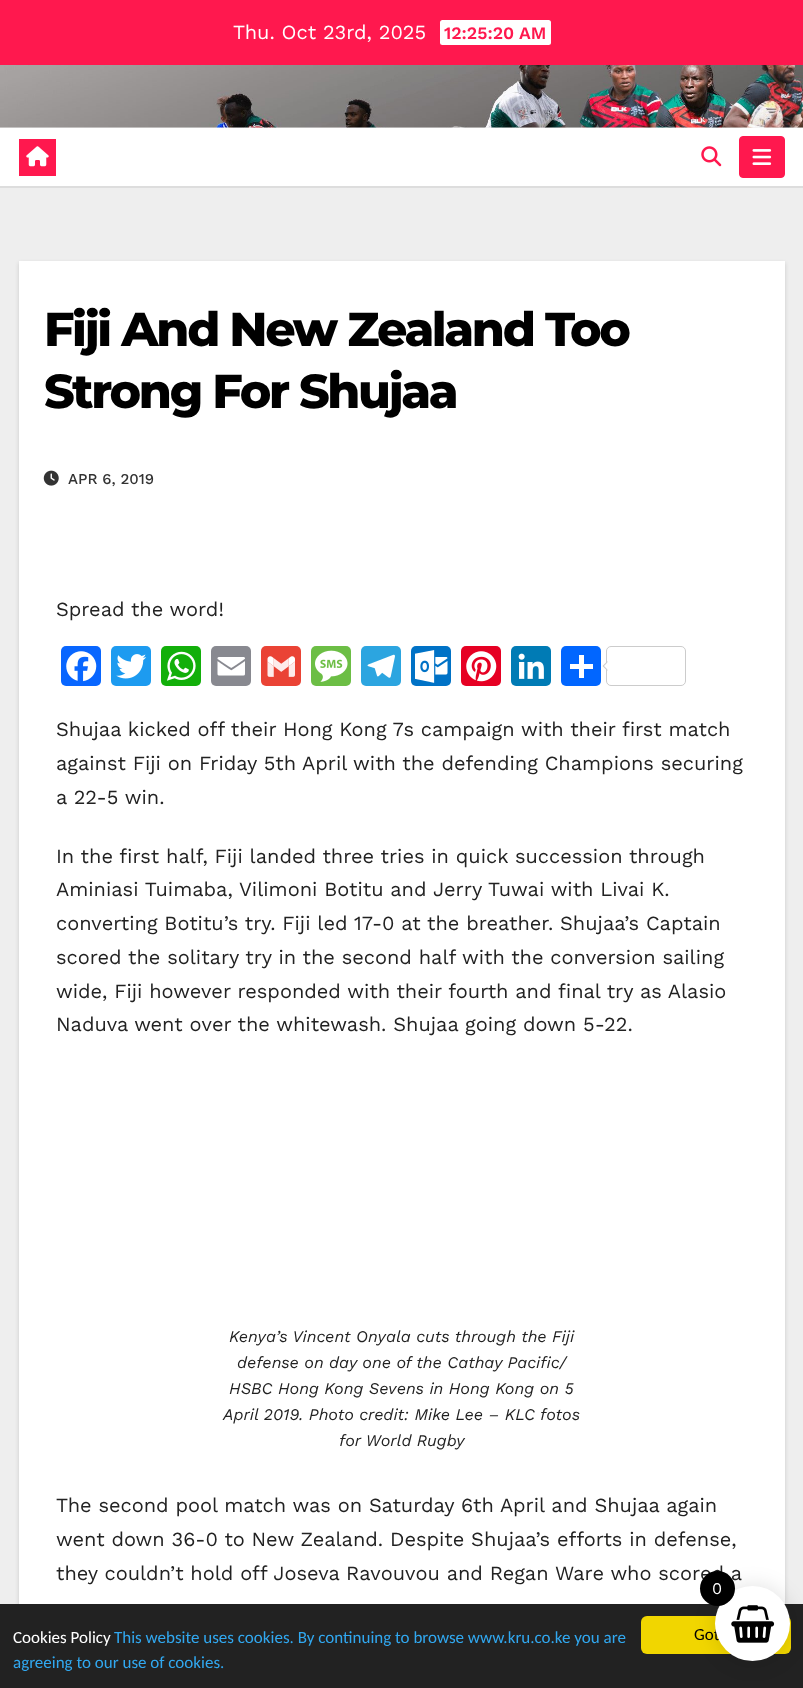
<!DOCTYPE html>
<meta charset="utf-8">
<style>body { margin: 0 } canvas { display: block }</style>
<canvas id="canvas" width="803" height="1688"></canvas>
<script type="module">
  const canvas = document.getElementById("canvas");
  const g = canvas.getContext("2d");
  g.miterLimit = 4;
  g.fontKerning = "normal";
  function drawText(s, x, y, [font, color]) {
    g.font = font;
    g.fillStyle = color;
    g.fillText(s, x, y);
  }
  function fillBox(x, y, w, h, color) {
    g.fillStyle = color;
    g.fillRect(x, y, w, h);
  }
  function fillRounded(x, y, w, h, r, color) {
    g.fillStyle = color;
    g.beginPath();
    g.roundRect(x, y, w, h, r);
    g.fill();
  }
  async function drawPicture(src, x, y, w, h) {
    const img = new Image();
    img.src = src;
    await img.decode();
    g.drawImage(img, x, y, w, h);
  }

  const s1 = ["20px Work Sans", "#FFFFFF"];
  const s2 = ["600 17.5px Work Sans", "#FF184E"];
  const s3 = ["800 47.5px Montserrat", "#000000"];
  const s4 = ["500 15px Work Sans", "#333333"];
  const s5 = ["20px Work Sans", "#222222"];
  const s6 = ["italic 16.25px Work Sans", "#222222"];
  const s7 = ["17px Carlito", "#000000"];
  const s8 = ["16.25px Work Sans", "#FFFFFF"];
  const s9 = ["17px Carlito", "#FFFFFF"];
  const s10 = ["17px Carlito", "#31A8F0"];

  fillBox(0, 0, 803, 1688, "#EEEEEE");
  fillBox(0, 0, 803, 65, "#FF184E");
  drawText("Thu. Oct 23rd, 2025", 233, 39, s1);
  fillRounded(440, 20, 111, 25, 2.5, "#FFFFFF");
  drawText("12:25:20 AM", 444, 39, s2);
  await drawPicture("pic1.png", 0, 65, 803, 63);
  g.fillStyle = "#DDDDDD";
  g.beginPath();
  g.moveTo(0, 186);
  g.lineTo(0, 188);
  g.lineTo(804, 188);
  g.lineTo(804, 129);
  g.lineTo(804, 186);
  g.closePath();
  g.fill();
  fillBox(0, 128, 803, 58, "#FFFFFF");
  fillBox(19, 139, 37, 37, "#FF184E");
  await drawPicture("pic2.png", 26, 146, 23, 21);
  await drawPicture("pic3.png", 701, 146, 21, 21);
  g.beginPath();
  g.roundRect(739.5, 136.5, 45, 41, 3.5);
  g.fill();
  g.strokeStyle = "#FF184E";
  g.stroke();
  await drawPicture("pic4.png", 752, 149, 20, 16);
  g.fillStyle = "rgba(0, 0, 0, 0.15)";
  g.filter = "blur(2px)";
  g.beginPath();
  g.rect(19, 263, 766, 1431);
  g.fill();
  g.filter = "none";
  fillBox(19, 261, 766, 1343, "#FFFFFF");
  g.letterSpacing = "-2.4px";
  drawText("Fiji And New Zealand Too", 44, 346, s3);
  drawText("Strong For Shujaa", 44, 408, s3);
  await drawPicture("pic5.png", 43, 470, 16, 16);
  g.letterSpacing = "0px";
  drawText("APR 6, 2019", 68, 484, s4);
  drawText("Spread the word!", 56, 616, s5);
  fillRounded(61, 646, 40, 40, 5, "#0866FF");
  await drawPicture("pic6.png", 66, 651, 31, 31);
  fillRounded(111, 646, 40, 40, 5, "#1D9BF0");
  await drawPicture("pic7.png", 116, 654, 31, 25);
  fillRounded(161, 646, 40, 40, 5, "#12AF0A");
  await drawPicture("pic8.png", 166, 651, 30, 30);
  fillRounded(211, 646, 40, 40, 5, "#888990");
  await drawPicture("pic9.png", 217, 657, 28, 19);
  fillRounded(261, 646, 40, 40, 5, "#EA4335");
  await drawPicture("pic10.png", 267, 656, 28, 21);
  fillRounded(311, 646, 40, 40, 5, "#6CBE45");
  await drawPicture("pic11.png", 315, 650, 33, 32);
  fillRounded(361, 646, 40, 40, 5, "#2CA5E0");
  await drawPicture("pic12.png", 367, 654, 28, 24);
  fillRounded(411, 646, 40, 40, 5, "#0072C6");
  await drawPicture("pic13.png", 415, 650, 33, 33);
  fillRounded(461, 646, 40, 40, 5, "#E60023");
  await drawPicture("pic14.png", 466, 651, 31, 31);
  fillRounded(511, 646, 40, 40, 5, "#007BB5");
  await drawPicture("pic15.png", 518, 653, 26, 26);
  fillRounded(561, 646, 40, 40, 5, "#0166FF");
  fillBox(579, 655, 5, 23, "#FFFFFF");
  fillBox(570, 664, 23, 5, "#FFFFFF");
  g.beginPath();
  g.roundRect(606.5, 646.5, 79, 39, 4.5);
  g.strokeStyle = "#CCCCCC";
  g.stroke();
  g.fillStyle = "#CCCCCC";
  g.beginPath();
  g.moveTo(607.5, 661);
  g.lineTo(607.5, 671);
  g.lineTo(602.5, 666);
  g.closePath();
  g.fill();
  g.fillStyle = "#FFFFFF";
  g.beginPath();
  g.moveTo(609, 661);
  g.lineTo(609, 671);
  g.lineTo(604, 666);
  g.closePath();
  g.fill();
  drawText("Shujaa kicked off their Hong Kong 7s campaign with their first match", 56, 736, s5);
  drawText("against Fiji on Friday 5th April with the defending Champions securing", 56, 770, s5);
  drawText("a 22-5 win.", 56, 804, s5);
  drawText("In the first half, Fiji landed three tries in quick succession through", 56, 863, s5);
  drawText("Aminiasi Tuimaba, Vilimoni Botitu and Jerry Tuwai with Livai K.", 56, 896, s5);
  drawText("converting Botitu’s try. Fiji led 17-0 at the breather. Shujaa’s Captain", 56, 930, s5);
  drawText("scored the solitary try in the second half with the conversion sailing", 56, 964, s5);
  drawText("wide, Fiji however responded with their fourth and final try as Alasio", 56, 998, s5);
  drawText("Naduva went over the whitewash. Shujaa going down 5-22.", 56, 1031, s5);
  drawText("Kenya’s Vincent Onyala cuts through the Fiji", 229, 1342, s6);
  drawText("defense on day one of the Cathay Pacific/", 237, 1368, s6);
  drawText("HSBC Hong Kong Sevens in Hong Kong on 5", 229, 1394, s6);
  drawText("April 2019. Photo credit: Mike Lee – KLC fotos", 223, 1420, s6);
  drawText("for World Rugby", 339, 1446, s6);
  drawText("The second pool match was on Saturday 6th April and Shujaa again", 56, 1512, s5);
  drawText("went down 36-0 to New Zealand. Despite Shujaa’s efforts in defense,", 56, 1546, s5);
  drawText("they couldn’t hold off Joseva Ravouvou and Regan Ware who scored a", 56, 1580, s5);
  fillBox(0, 1604, 803, 84, "#222222");
  fillRounded(641, 1616, 150, 38, 6, "#F1D600");
  g.fillStyle = "rgba(0, 0, 0, 0.1)";
  g.filter = "blur(9.5px)";
  g.beginPath();
  g.roundRect(713, 1584, 80, 80, 40);
  g.fill();
  g.filter = "none";
  drawText("Got", 694, 1640, s7);
  g.fillStyle = "#FFFFFF";
  g.beginPath();
  g.arc(752.5, 1623.5, 37.5, 0, Math.PI * 2);
  g.fill();
  await drawPicture("pic16.png", 731, 1605, 44, 38);
  g.fillStyle = "#000000";
  g.beginPath();
  g.arc(717.5, 1588.5, 17.5, 0, Math.PI * 2);
  g.fill();
  drawText("0", 712, 1594, s8);
  drawText("Cookies Policy", 13, 1643, s9);
  drawText("This website uses cookies. By continuing to browse www.kru.co.ke you are", 114, 1643, s10);
  drawText("agreeing to our use of cookies.", 13, 1668, s10);
</script>
